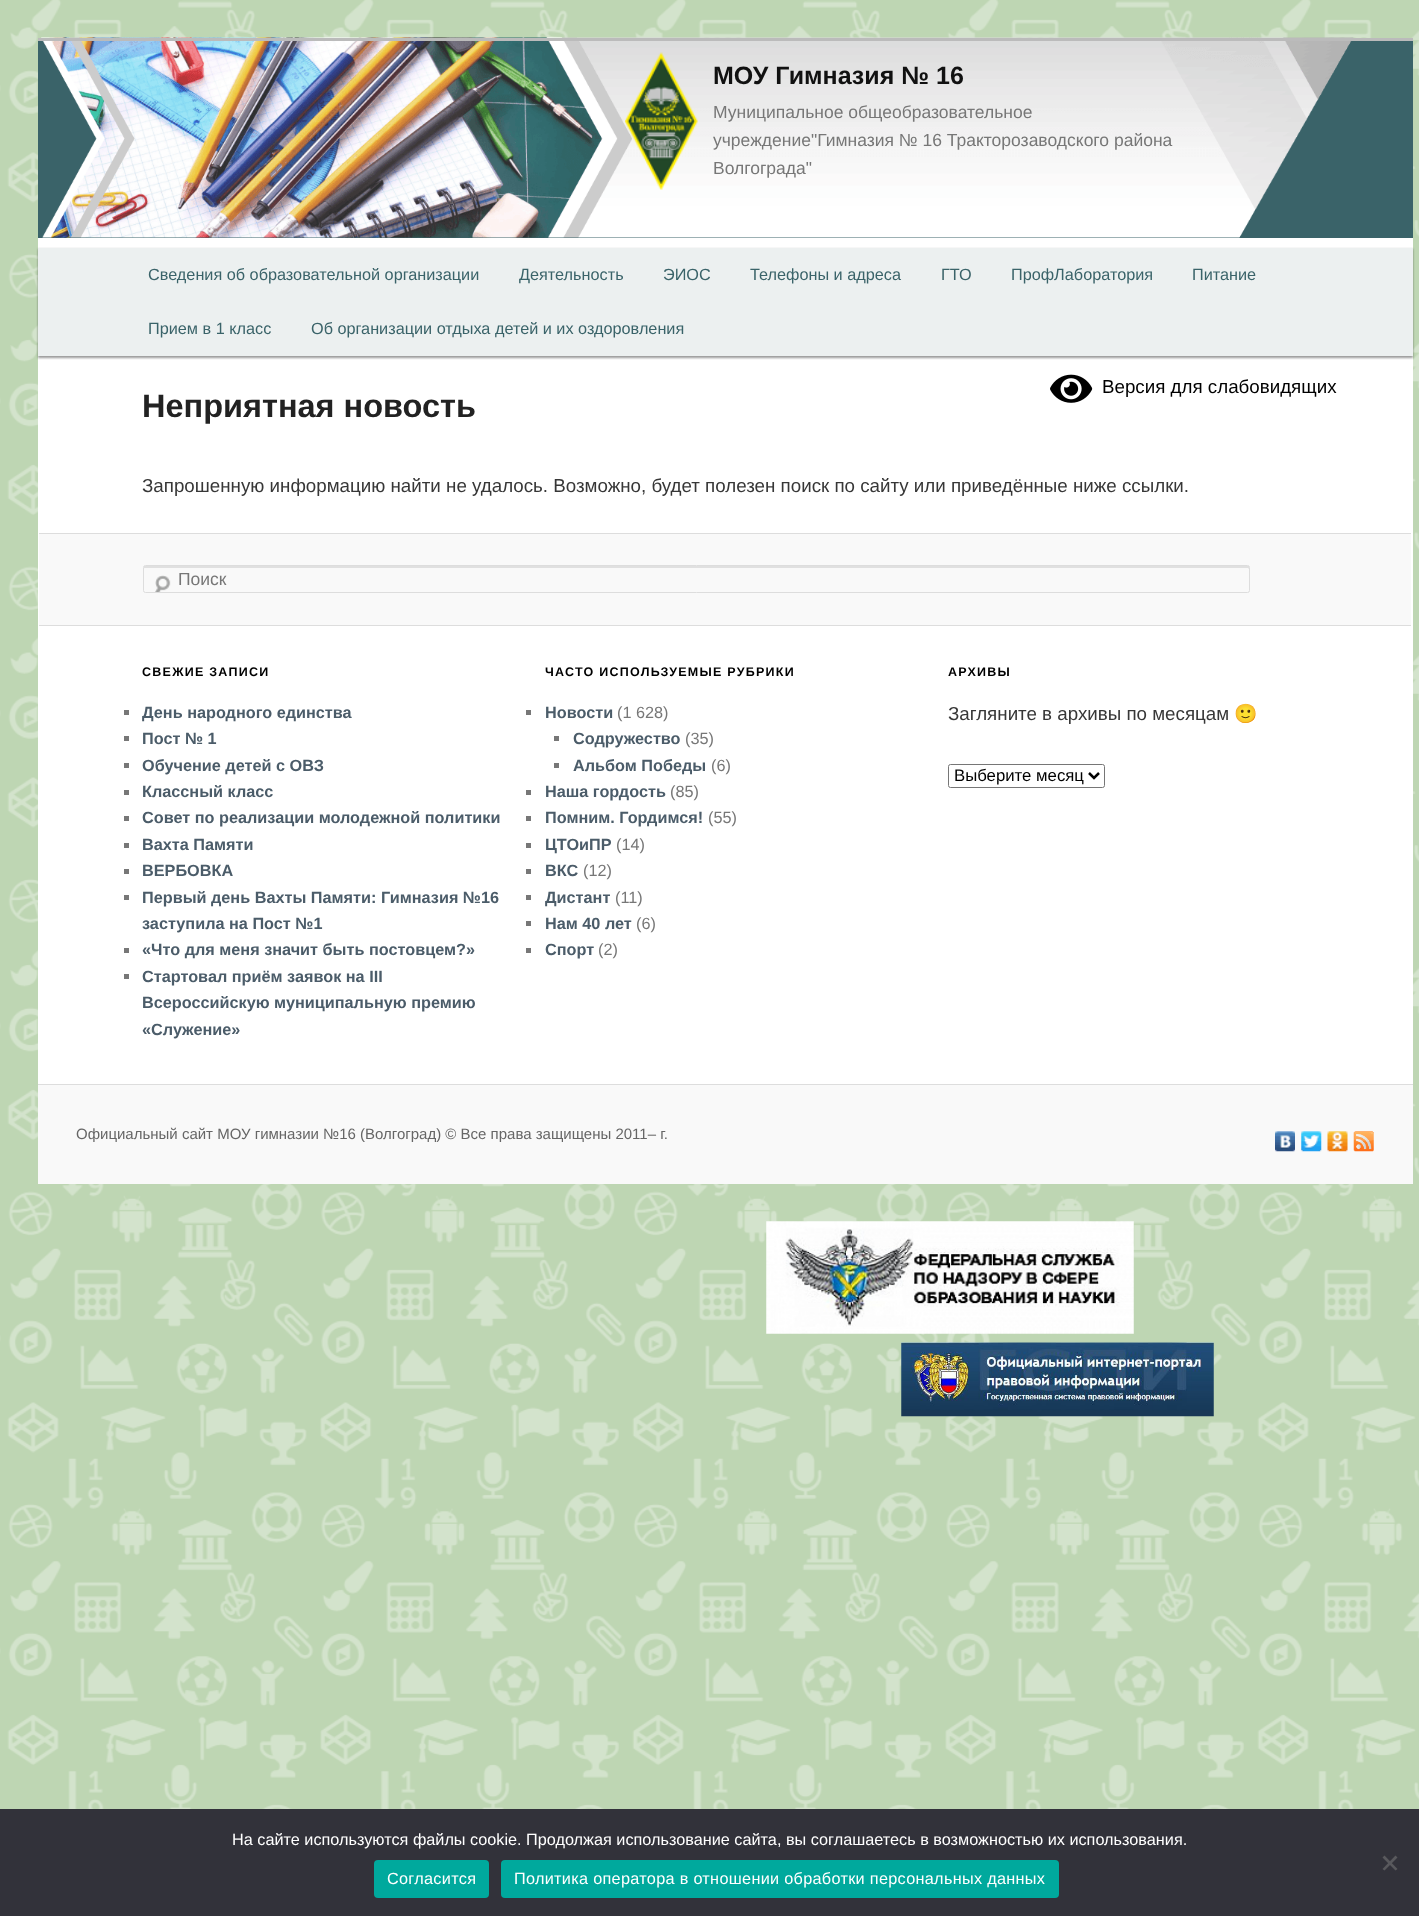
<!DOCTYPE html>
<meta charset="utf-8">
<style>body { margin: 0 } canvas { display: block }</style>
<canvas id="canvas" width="1419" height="1916"></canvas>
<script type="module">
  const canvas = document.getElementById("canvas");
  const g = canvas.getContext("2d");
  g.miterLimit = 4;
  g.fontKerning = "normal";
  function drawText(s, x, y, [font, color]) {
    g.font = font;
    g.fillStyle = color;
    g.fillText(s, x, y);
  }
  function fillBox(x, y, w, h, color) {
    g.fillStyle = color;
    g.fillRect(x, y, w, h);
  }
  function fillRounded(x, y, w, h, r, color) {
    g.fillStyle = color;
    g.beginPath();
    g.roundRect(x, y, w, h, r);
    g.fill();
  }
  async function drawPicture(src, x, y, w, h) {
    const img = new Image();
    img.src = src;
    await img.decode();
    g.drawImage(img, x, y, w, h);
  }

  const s1 = ["bold 25px Liberation Sans", "#111111"];
  const s2 = ["17.5px Liberation Sans", "#777777"];
  const s3 = ["16.25px Liberation Sans", "#3A6369"];
  const s4 = ["18.75px Liberation Sans", "#000000"];
  const s5 = ["bold 32.5px Liberation Sans", "#222222"];
  const s6 = ["18.75px Liberation Sans", "#373737"];
  const s7 = ["bold 12.5px Liberation Sans", "#000000"];
  const s8 = ["bold 16.25px Liberation Sans", "#4B5C69"];
  const s9 = ["16.25px Liberation Sans", "#777777"];
  const s10 = ["18.75px Noto Color Emoji", "#373737"];
  const s11 = ["16.75px Liberation Sans", "#000000"];
  const s12 = ["15px Liberation Sans", "#666666"];
  const s13 = ["16.25px Liberation Sans", "#FFFFFF"];

  fillBox(0, 0, 1419, 1916, "#BED6B3");
  await drawPicture("pic1.png", 0, 0, 1419, 1809);
  fillBox(38, 238, 1375, 846, "#FFFFFF");
  fillBox(38, 41, 1375, 197, "#3A6369");
  await drawPicture("pic2.png", 41, 37, 1313, 201);
  fillBox(38, 38, 1375, 3, "#BBBBBB");
  await drawPicture("pic3.png", 625, 52, 73, 138);
  drawText("МОУ Гимназия № 16", 713, 84, s1);
  drawText("Муниципальное общеобразовательное", 713, 118, s2);
  drawText("учреждение\"Гимназия № 16 Тракторозаводского района", 713, 146, s2);
  drawText("Волгограда\"", 713, 174, s2);
  g.fillStyle = "rgba(0, 0, 0, 0.4)";
  g.filter = "blur(1px)";
  g.beginPath();
  g.rect(38, 249, 1375, 109);
  g.fill();
  g.filter = "none";
  fillBox(38, 248, 1375, 108, "#ECF0F0");
  drawText("Сведения об образовательной организации", 148, 280, s3);
  drawText("Деятельность", 519, 280, s3);
  drawText("ЭИОС", 663, 280, s3);
  drawText("Телефоны и адреса", 750, 280, s3);
  drawText("ГТО", 941, 280, s3);
  drawText("ПрофЛаборатория", 1011, 280, s3);
  drawText("Питание", 1192, 280, s3);
  drawText("Прием в 1 класс", 148, 334, s3);
  drawText("Об организации отдыха детей и их оздоровления", 311, 334, s3);
  await drawPicture("pic4.png", 1050, 374, 43, 29);
  drawText("Версия для слабовидящих", 1102, 393, s4);
  drawText("Неприятная новость", 142, 417, s5);
  drawText("Запрошенную информацию найти не удалось. Возможно, будет полезен поиск по сайту или приведённые ниже ссылки.", 142, 492, s6);
  fillBox(39, 534, 1372, 91, "#F9F9F9");
  fillBox(39, 533, 1372, 1, "#DDDDDD");
  fillBox(39, 625, 1372, 1, "#DDDDDD");
  await drawPicture("pic5.png", 155, 575, 16, 17);
  g.fillStyle = "#E0E0E0";
  g.beginPath();
  g.moveTo(145, 568);
  g.lineTo(1248, 568);
  g.lineTo(1249, 569);
  g.lineTo(1249, 566);
  g.lineTo(1248, 566);
  g.lineTo(144, 566);
  g.lineTo(144, 569);
  g.bezierCurveTo(144, 568, 144, 568, 145, 568);
  g.closePath();
  g.fill();
  g.beginPath();
  g.roundRect(143.5, 565.5, 1106, 27, 2);
  g.strokeStyle = "#DDDDDD";
  g.stroke();
  drawText("Поиск", 178, 585, s2);
  g.letterSpacing = "1.25px";
  drawText("СВЕЖИЕ ЗАПИСИ", 142, 676, s7);
  fillBox(124, 710, 5, 5, "#777777");
  g.letterSpacing = "0px";
  drawText("День народного единства", 142, 718, s8);
  fillBox(124, 736, 5, 5, "#777777");
  drawText("Пост № 1", 142, 744, s8);
  fillBox(124, 763, 5, 5, "#777777");
  drawText("Обучение детей с ОВЗ", 142, 771, s8);
  fillBox(124, 790, 5, 5, "#777777");
  drawText("Классный класс", 142, 797, s8);
  fillBox(124, 816, 5, 5, "#777777");
  drawText("Совет по реализации молодежной политики", 142, 823, s8);
  fillBox(124, 843, 5, 5, "#777777");
  drawText("Вахта Памяти", 142, 850, s8);
  fillBox(124, 869, 5, 5, "#777777");
  drawText("ВЕРБОВКА", 142, 876, s8);
  fillBox(124, 895, 5, 5, "#777777");
  drawText("Первый день Вахты Памяти: Гимназия №16", 142, 903, s8);
  drawText("заступила на Пост №1", 142, 929, s8);
  fillBox(124, 948, 5, 5, "#777777");
  drawText("«Что для меня значит быть постовцем?»", 142, 955, s8);
  fillBox(124, 974, 5, 5, "#777777");
  drawText("Стартовал приём заявок на III", 142, 982, s8);
  drawText("Всероссийскую муниципальную премию", 142, 1008, s8);
  drawText("«Служение»", 142, 1035, s8);
  g.letterSpacing = "1.25px";
  drawText("ЧАСТО ИСПОЛЬЗУЕМЫЕ РУБРИКИ", 545, 676, s7);
  fillBox(526, 710, 5, 5, "#777777");
  g.letterSpacing = "0px";
  drawText("Новости", 545, 718, s8);
  drawText("(1 628)", 617, 718, s9);
  fillBox(554, 736, 5, 5, "#777777");
  drawText("Содружество", 573, 744, s8);
  drawText("(35)", 685, 744, s9);
  fillBox(554, 763, 5, 5, "#777777");
  drawText("Альбом Победы", 573, 771, s8);
  drawText("(6)", 711, 771, s9);
  fillBox(526, 790, 5, 5, "#777777");
  drawText("Наша гордость", 545, 797, s8);
  drawText("(85)", 670, 797, s9);
  fillBox(526, 816, 5, 5, "#777777");
  drawText("Помним. Гордимся!", 545, 823, s8);
  drawText("(55)", 708, 823, s9);
  fillBox(526, 843, 5, 5, "#777777");
  drawText("ЦТОиПР", 545, 850, s8);
  drawText("(14)", 616, 850, s9);
  fillBox(526, 869, 5, 5, "#777777");
  drawText("ВКС", 545, 876, s8);
  drawText("(12)", 583, 876, s9);
  fillBox(526, 895, 5, 5, "#777777");
  drawText("Дистант", 545, 903, s8);
  drawText("(11)", 615, 903, s9);
  fillBox(526, 921, 5, 5, "#777777");
  drawText("Нам 40 лет", 545, 929, s8);
  drawText("(6)", 636, 929, s9);
  fillBox(526, 948, 5, 5, "#777777");
  drawText("Спорт", 545, 955, s8);
  drawText("(2)", 598, 955, s9);
  g.letterSpacing = "1.25px";
  drawText("АРХИВЫ", 948, 676, s7);
  g.letterSpacing = "0px";
  drawText("Загляните в архивы по месяцам", 948, 720, s6);
  drawText("🙂", 1234, 720, s10);
  g.beginPath();
  g.roundRect(948.5, 764.5, 156, 23, 2);
  g.strokeStyle = "#767676";
  g.stroke();
  g.beginPath();
  g.moveTo(1089, 773);
  g.lineTo(1094, 778);
  g.lineTo(1099, 773);
  g.strokeStyle = "#000000";
  g.lineWidth = 2.5;
  g.stroke();
  drawText("Выберите месяц", 954, 781, s11);
  fillBox(38, 1085, 1375, 99, "#F9F9F9");
  fillBox(38, 1084, 1375, 1, "#DDDDDD");
  drawText("Официальный сайт МОУ гимназии №16 (Волгоград) © Все права защищены 2011– г.", 76, 1139, s12);
  await drawPicture("pic6.png", 1275, 1131, 20, 21);
  await drawPicture("pic7.png", 1301, 1131, 21, 21);
  await drawPicture("pic8.png", 1327, 1131, 21, 21);
  await drawPicture("pic9.png", 1353, 1131, 21, 21);
  await drawPicture("pic10.png", 766, 1221, 368, 113);
  await drawPicture("pic11.png", 901, 1342, 313, 75);
  fillBox(0, 1809, 1419, 107, "#32323A");
  drawText("На сайте используются файлы cookie. Продолжая использование сайта, вы соглашаетесь в возможностью их использования.", 232, 1845, s13);
  g.fillStyle = "#59595D";
  g.beginPath();
  g.moveTo(1395.5, 1855.5);
  g.lineTo(1397.5, 1857.5);
  g.lineTo(1384.5, 1870.5);
  g.lineTo(1382.5, 1869);
  g.closePath();
  g.fill();
  g.beginPath();
  g.moveTo(1382.5, 1857.5);
  g.lineTo(1384.5, 1855.5);
  g.lineTo(1397.5, 1869);
  g.lineTo(1395.5, 1870.5);
  g.closePath();
  g.fill();
  fillRounded(374, 1860, 115, 38, 4, "#00A99D");
  g.letterSpacing = "0.3px";
  drawText("Согласится", 387, 1884, s13);
  fillRounded(501, 1860, 558, 38, 4, "#00A99D");
  drawText("Политика оператора в отношении обработки персональных данных", 514, 1884, s13);
</script>
